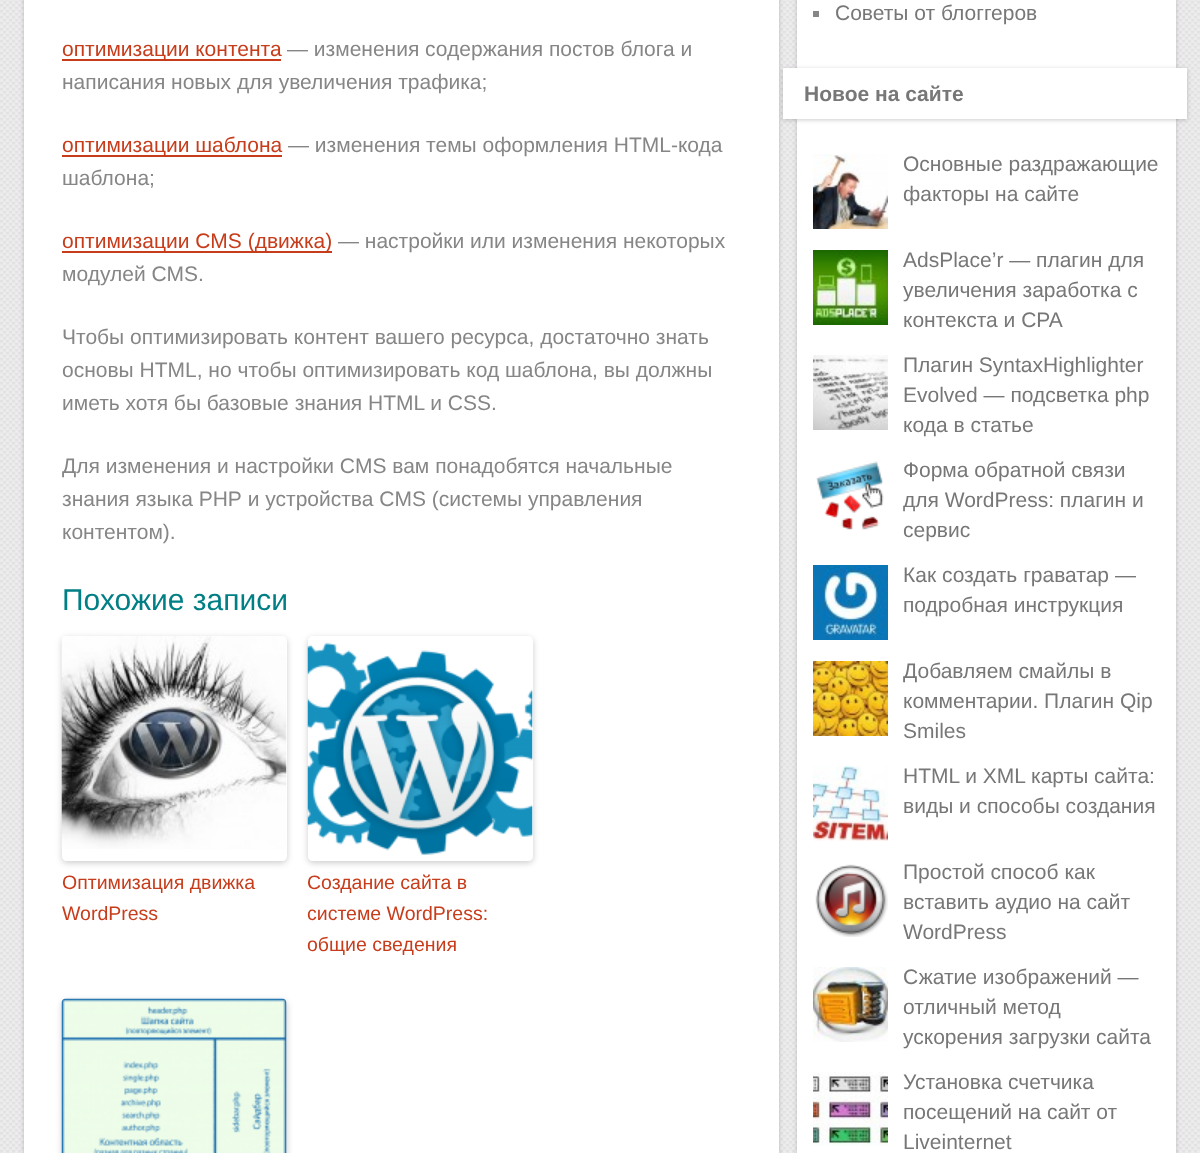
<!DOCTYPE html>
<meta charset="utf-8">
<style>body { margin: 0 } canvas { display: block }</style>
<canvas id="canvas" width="1200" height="1153"></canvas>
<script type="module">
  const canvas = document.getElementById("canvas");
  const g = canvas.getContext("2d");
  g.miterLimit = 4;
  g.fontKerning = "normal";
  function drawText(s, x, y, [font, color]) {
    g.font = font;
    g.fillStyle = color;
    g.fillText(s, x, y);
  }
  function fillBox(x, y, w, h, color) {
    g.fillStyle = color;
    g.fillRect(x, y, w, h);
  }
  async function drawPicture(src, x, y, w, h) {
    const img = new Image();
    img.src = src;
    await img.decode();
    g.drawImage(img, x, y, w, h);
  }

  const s1 = ["21px Liberation Sans", "#C73C1A"];
  const s2 = ["21px Liberation Sans", "#868686"];
  const s3 = ["30px Liberation Sans", "#007F85"];
  const s4 = ["19.5px Liberation Sans", "#C73C1A"];
  const s5 = ["21px Liberation Sans", "#777777"];
  const s6 = ["bold 21px Liberation Sans", "#777777"];

  fillBox(0, 0, 1200, 1153, "#FFFFFF");
  await drawPicture("pic1.png", 0, 0, 1200, 1153);
  g.fillStyle = "rgba(0, 0, 0, 0.2)";
  g.filter = "blur(2px)";
  g.beginPath();
  g.rect(24, -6, 755, 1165);
  g.fill();
  g.filter = "none";
  fillBox(24, 0, 755, 1153, "#FFFFFF");
  fillBox(62, 59, 219, 2, "#C73C1A");
  drawText("оптимизации контента", 62, 56, s1);
  drawText("— изменения содержания постов блога и", 287, 56, s2);
  drawText("написания новых для увеличения трафика;", 62, 89, s2);
  fillBox(62, 155, 220, 2, "#C73C1A");
  drawText("оптимизации шаблона", 62, 152, s1);
  drawText("— изменения темы оформления HTML-кода", 288, 152, s2);
  drawText("шаблона;", 62, 185, s2);
  fillBox(62, 251, 270, 2, "#C73C1A");
  drawText("оптимизации CMS (движка)", 62, 248, s1);
  drawText("— настройки или изменения некоторых", 338, 248, s2);
  drawText("модулей CMS.", 62, 281, s2);
  drawText("Чтобы оптимизировать контент вашего ресурса, достаточно знать", 62, 344, s2);
  drawText("основы HTML, но чтобы оптимизировать код шаблона, вы должны", 62, 377, s2);
  drawText("иметь хотя бы базовые знания HTML и CSS.", 62, 410, s2);
  drawText("Для изменения и настройки CMS вам понадобятся начальные", 62, 473, s2);
  drawText("знания языка РНР и устройства CMS (системы управления", 62, 506, s2);
  drawText("контентом).", 62, 539, s2);
  drawText("Похожие записи", 62, 610, s3);
  g.save();
  g.beginPath();
  g.moveTo(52, 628);
  g.lineTo(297, 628);
  g.lineTo(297, 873);
  g.lineTo(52, 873);
  g.closePath();
  g.moveTo(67, 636);
  g.lineTo(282, 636);
  g.bezierCurveTo(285, 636, 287, 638, 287, 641);
  g.lineTo(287, 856);
  g.bezierCurveTo(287, 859, 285, 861, 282, 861);
  g.lineTo(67, 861);
  g.bezierCurveTo(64, 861, 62, 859, 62, 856);
  g.lineTo(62, 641);
  g.bezierCurveTo(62, 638, 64, 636, 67, 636);
  g.closePath();
  g.clip("evenodd");
  g.fillStyle = "rgba(0, 0, 0, 0.2)";
  g.filter = "blur(3px)";
  g.beginPath();
  g.roundRect(62, 638, 225, 225, 5);
  g.fill();
  g.filter = "none";
  g.restore();
  await drawPicture("pic2.png", 61, 636, 226, 213);
  drawText("Оптимизация движка", 62, 889, s4);
  drawText("WordPress", 62, 920, s4);
  g.save();
  g.beginPath();
  g.moveTo(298, 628);
  g.lineTo(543, 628);
  g.lineTo(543, 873);
  g.lineTo(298, 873);
  g.closePath();
  g.moveTo(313, 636);
  g.lineTo(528, 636);
  g.bezierCurveTo(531, 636, 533, 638, 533, 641);
  g.lineTo(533, 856);
  g.bezierCurveTo(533, 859, 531, 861, 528, 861);
  g.lineTo(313, 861);
  g.bezierCurveTo(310, 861, 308, 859, 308, 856);
  g.lineTo(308, 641);
  g.bezierCurveTo(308, 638, 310, 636, 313, 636);
  g.closePath();
  g.clip("evenodd");
  g.fillStyle = "rgba(0, 0, 0, 0.2)";
  g.filter = "blur(3px)";
  g.beginPath();
  g.roundRect(308, 638, 225, 225, 5);
  g.fill();
  g.filter = "none";
  g.restore();
  await drawPicture("pic3.png", 307, 642, 226, 213);
  drawText("Создание сайта в", 307, 889, s4);
  drawText("системе WordPress:", 307, 920, s4);
  drawText("общие сведения", 307, 951, s4);
  g.fillStyle = "rgba(0, 0, 0, 0.2)";
  g.filter = "blur(3px)";
  g.beginPath();
  g.roundRect(62, 1001, 225, 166, 5);
  g.fill();
  g.filter = "none";
  await drawPicture("pic4.png", 61, 998, 226, 155);
  g.filter = "blur(2px)";
  g.beginPath();
  g.rect(797, -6, 379, 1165);
  g.fill();
  g.filter = "none";
  fillBox(797, 0, 379, 1153, "#FFFFFF");
  fillBox(813, 11, 6, 6, "#868686");
  drawText("Советы от блоггеров", 835, 20, s5);
  g.fillStyle = "rgba(0, 0, 0, 0.2)";
  g.filter = "blur(2px)";
  g.beginPath();
  g.rect(783, 69, 404, 51);
  g.fill();
  g.filter = "none";
  fillBox(783, 68, 404, 51, "#FFFFFF");
  drawText("Новое на сайте", 804, 101, s6);
  await drawPicture("pic5.png", 813, 154, 75, 75);
  drawText("Основные раздражающие", 903, 171, s5);
  drawText("факторы на сайте", 903, 201, s5);
  await drawPicture("pic6.png", 813, 250, 75, 75);
  drawText("AdsPlace’r — плагин для", 903, 267, s5);
  drawText("увеличения заработка с", 903, 297, s5);
  drawText("контекста и CPA", 903, 327, s5);
  await drawPicture("pic7.png", 813, 355, 75, 75);
  drawText("Плагин SyntaxHighlighter", 903, 372, s5);
  drawText("Evolved — подсветка php", 903, 402, s5);
  drawText("кода в статье", 903, 432, s5);
  await drawPicture("pic8.png", 816, 461, 68, 69);
  drawText("Форма обратной связи", 903, 477, s5);
  drawText("для WordPress: плагин и", 903, 507, s5);
  drawText("сервис", 903, 537, s5);
  await drawPicture("pic9.png", 813, 565, 75, 75);
  drawText("Как создать граватар —", 903, 582, s5);
  drawText("подробная инструкция", 903, 612, s5);
  await drawPicture("pic10.png", 813, 661, 75, 75);
  drawText("Добавляем смайлы в", 903, 678, s5);
  drawText("комментарии. Плагин Qip", 903, 708, s5);
  drawText("Smiles", 903, 738, s5);
  await drawPicture("pic11.png", 813, 766, 75, 75);
  drawText("HTML и XML карты сайта:", 903, 783, s5);
  drawText("виды и способы создания", 903, 813, s5);
  await drawPicture("pic12.png", 815, 864, 73, 73);
  drawText("Простой способ как", 903, 879, s5);
  drawText("вставить аудио на сайт", 903, 909, s5);
  drawText("WordPress", 903, 939, s5);
  await drawPicture("pic13.png", 813, 967, 75, 75);
  drawText("Сжатие изображений —", 903, 984, s5);
  drawText("отличный метод", 903, 1014, s5);
  drawText("ускорения загрузки сайта", 903, 1044, s5);
  await drawPicture("pic14.png", 813, 1072, 75, 74);
  drawText("Установка счетчика", 903, 1089, s5);
  drawText("посещений на сайт от", 903, 1119, s5);
  drawText("Liveinternet", 903, 1149, s5);
</script>
